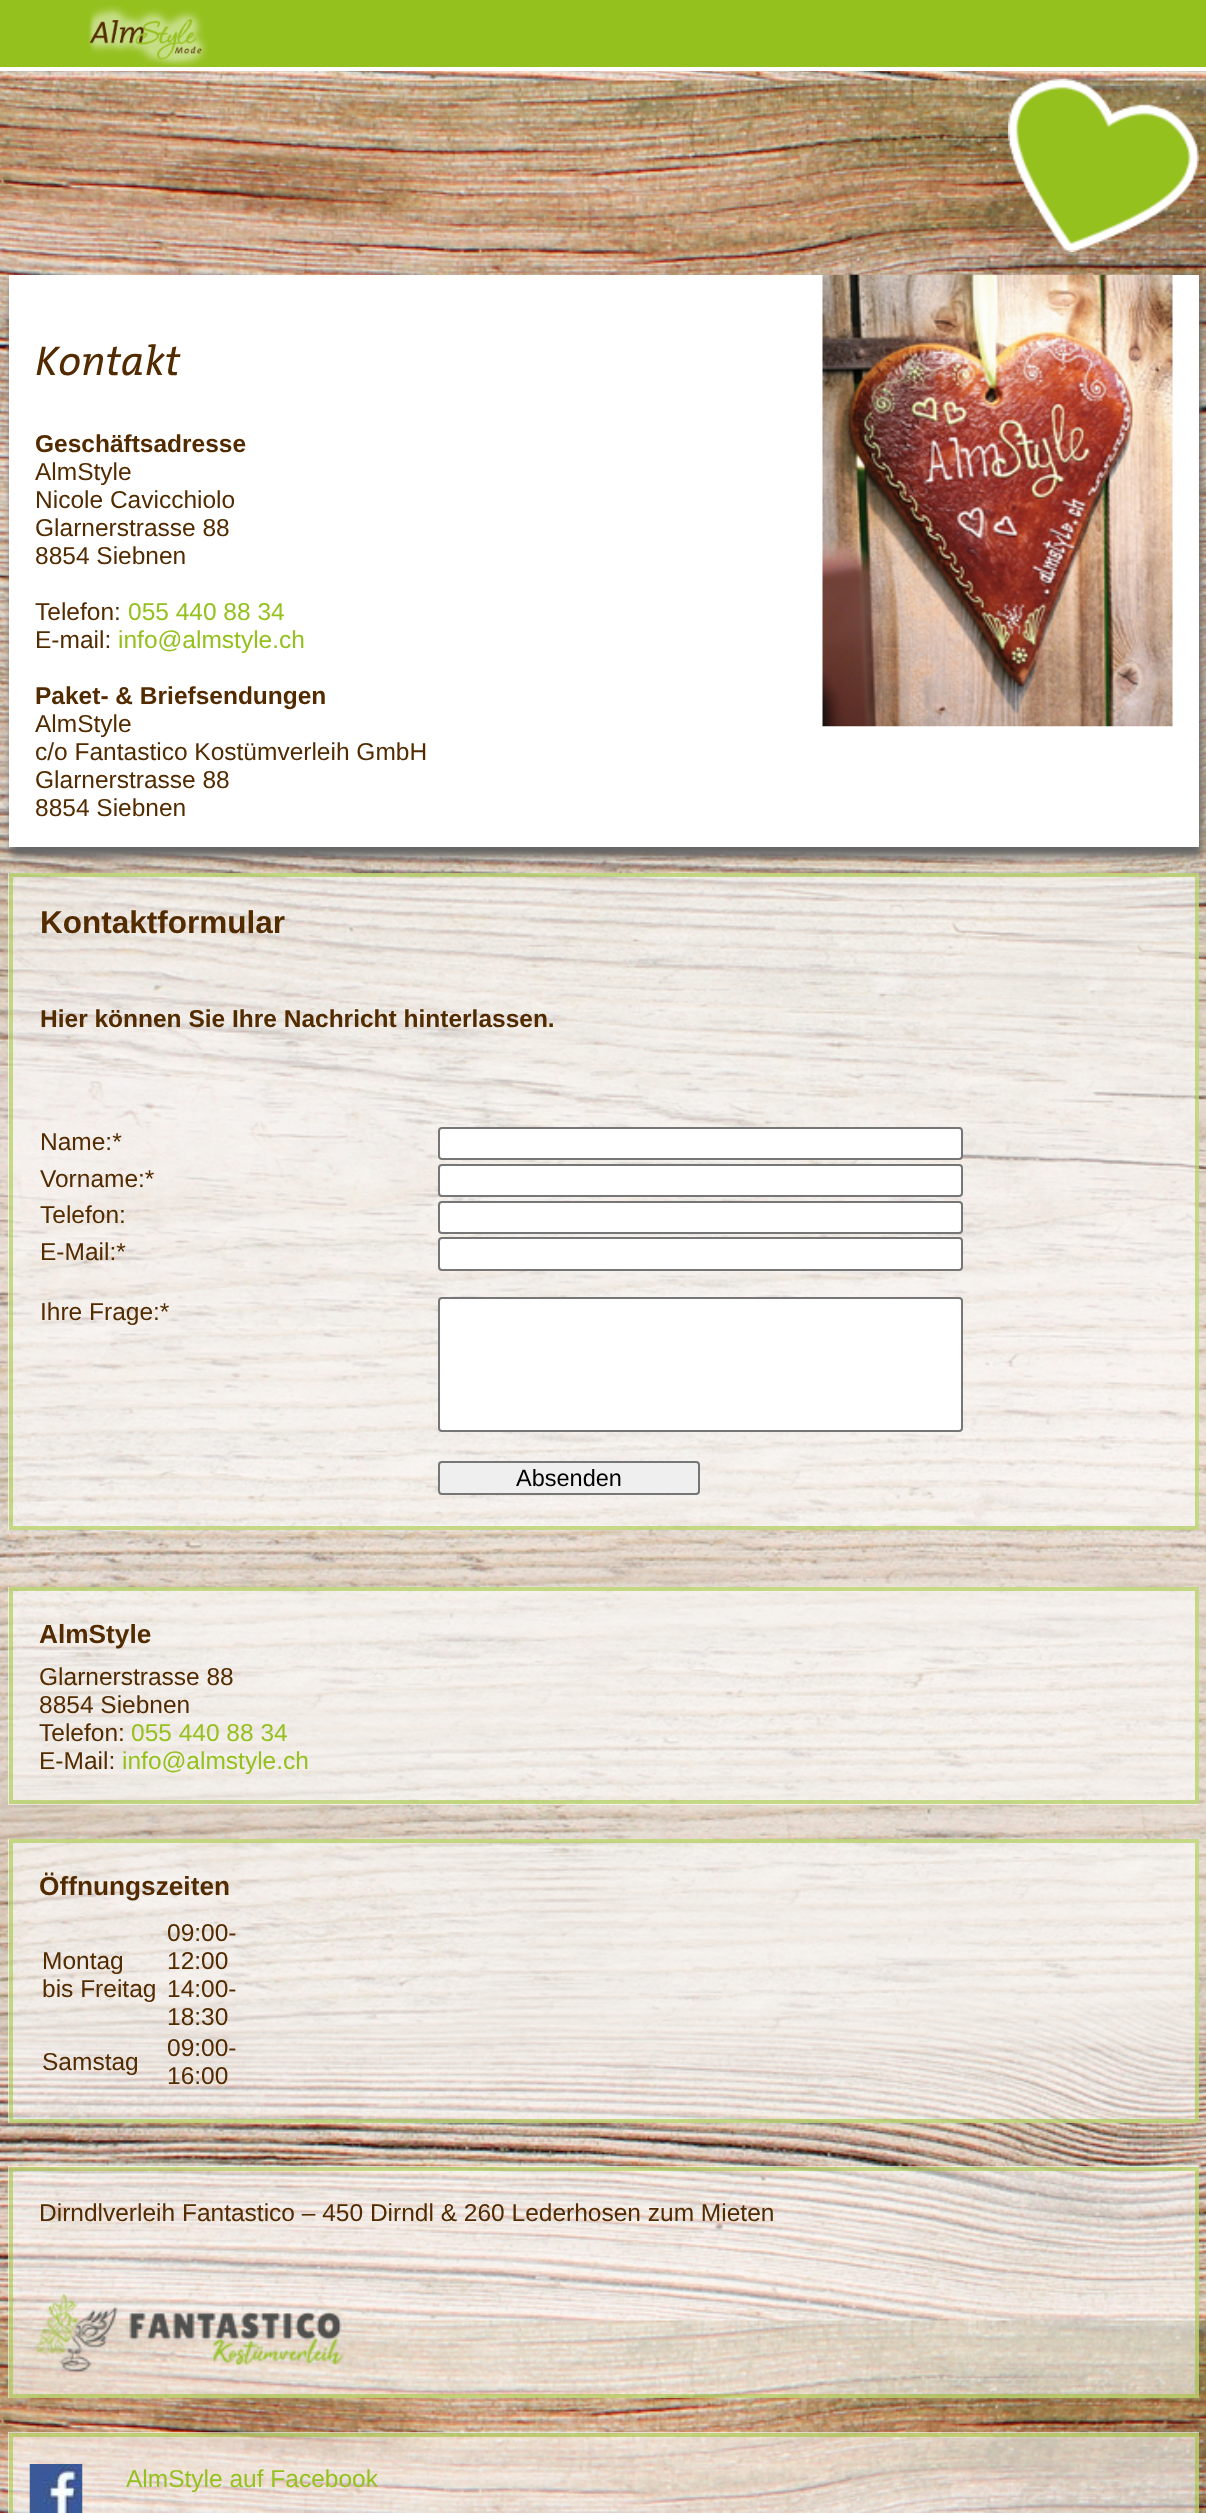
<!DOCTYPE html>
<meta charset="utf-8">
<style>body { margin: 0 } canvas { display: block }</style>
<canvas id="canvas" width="1206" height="2513"></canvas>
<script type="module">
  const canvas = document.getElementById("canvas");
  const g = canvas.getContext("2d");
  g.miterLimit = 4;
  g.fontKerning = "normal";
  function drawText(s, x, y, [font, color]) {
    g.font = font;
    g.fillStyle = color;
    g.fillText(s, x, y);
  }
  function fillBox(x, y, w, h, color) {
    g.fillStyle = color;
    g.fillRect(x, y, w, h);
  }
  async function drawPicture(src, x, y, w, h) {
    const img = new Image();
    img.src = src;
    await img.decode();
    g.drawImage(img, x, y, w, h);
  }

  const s1 = ["italic 42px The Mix", "#522B00"];
  const s2 = ["bold 24.5px Liberation Sans", "#522B00"];
  const s3 = ["24.5px Liberation Sans", "#522B00"];
  const s4 = ["24.5px Liberation Sans", "#95C11F"];
  const s5 = ["bold 31.5px Liberation Sans", "#522B00"];
  const s6 = ["23.5px Liberation Sans", "#000000"];
  const s7 = ["bold 26.25px Liberation Sans", "#522B00"];

  fillBox(0, 0, 1206, 2513, "#FFFFFF");
  await drawPicture("pic1.png", 0, 71, 1206, 2442);
  fillBox(0, 0, 1206, 67, "#95C11F");
  await drawPicture("pic2.png", 88, 5, 120, 62);
  await drawPicture("pic3.png", 1008, 78, 191, 174);
  g.fillStyle = "#666666";
  g.filter = "blur(3.5px)";
  g.beginPath();
  g.rect(11, 284, 1190, 572);
  g.fill();
  g.filter = "none";
  fillBox(9, 275, 1190, 572, "#FFFFFF");
  drawText("Kontakt", 35, 375, s1);
  await drawPicture("pic4.png", 822, 274, 351, 453);
  drawText("Geschäftsadresse", 35, 452, s2);
  drawText("AlmStyle", 35, 480, s3);
  drawText("Nicole Cavicchiolo", 35, 508, s3);
  drawText("Glarnerstrasse 88", 35, 536, s3);
  drawText("8854 Siebnen", 35, 564, s3);
  drawText("Telefon:", 35, 620, s3);
  drawText("055 440 88 34", 128, 620, s4);
  drawText("E-mail:", 35, 648, s3);
  drawText("info@almstyle.ch", 118, 648, s4);
  drawText("Paket- & Briefsendungen", 35, 704, s2);
  drawText("AlmStyle", 35, 732, s3);
  drawText("c/o Fantastico Kostümverleih GmbH", 35, 760, s3);
  drawText("Glarnerstrasse 88", 35, 788, s3);
  drawText("8854 Siebnen", 35, 816, s3);
  fillBox(8, 873, 1191, 657, "rgba(255, 255, 255, 0.6)");
  g.strokeStyle = "rgba(149, 193, 31, 0.5)";
  g.lineWidth = 4;
  g.strokeRect(11, 875, 1186, 653);
  drawText("Kontaktformular", 40, 933, s5);
  drawText("Hier können Sie Ihre Nachricht hinterlassen.", 40, 1027, s2);
  drawText("Name:*", 40, 1150, s3);
  g.fillStyle = "#FFFFFF";
  g.beginPath();
  g.roundRect(439, 1128, 523, 31, 3);
  g.fill();
  g.strokeStyle = "#767676";
  g.lineWidth = 2;
  g.stroke();
  drawText("Vorname:*", 40, 1187, s3);
  g.fillStyle = "#FFFFFF";
  g.beginPath();
  g.roundRect(439, 1165, 523, 31, 3);
  g.fill();
  g.stroke();
  drawText("Telefon:", 40, 1223, s3);
  g.fillStyle = "#FFFFFF";
  g.beginPath();
  g.roundRect(439, 1202, 523, 31, 3);
  g.fill();
  g.stroke();
  drawText("E-Mail:*", 40, 1260, s3);
  g.fillStyle = "#FFFFFF";
  g.beginPath();
  g.roundRect(439, 1238, 523, 32, 3);
  g.fill();
  g.stroke();
  drawText("Ihre Frage:*", 40, 1320, s3);
  g.fillStyle = "#FFFFFF";
  g.beginPath();
  g.roundRect(439, 1298, 523, 133, 3);
  g.fill();
  g.stroke();
  g.fillStyle = "#EFEFEF";
  g.beginPath();
  g.roundRect(439, 1462, 260, 32, 3);
  g.fill();
  g.stroke();
  drawText("Absenden", 516, 1486, s6);
  fillBox(8, 1587, 1191, 218, "rgba(255, 255, 255, 0.6)");
  g.strokeStyle = "rgba(149, 193, 31, 0.5)";
  g.lineWidth = 4;
  g.strokeRect(11, 1589, 1186, 213);
  drawText("AlmStyle", 39, 1643, s7);
  drawText("Glarnerstrasse 88", 39, 1685, s3);
  drawText("8854 Siebnen", 39, 1713, s3);
  drawText("Telefon:", 39, 1741, s3);
  drawText("055 440 88 34", 131, 1741, s4);
  drawText("E-Mail:", 39, 1769, s3);
  drawText("info@almstyle.ch", 122, 1769, s4);
  fillBox(8, 1839, 1191, 284, "rgba(255, 255, 255, 0.6)");
  g.strokeRect(11, 1841, 1186, 280);
  drawText("Öffnungszeiten", 39, 1895, s7);
  drawText("Montag", 42, 1969, s3);
  drawText("bis Freitag", 42, 1997, s3);
  drawText("09:00-", 167, 1941, s3);
  drawText("12:00", 167, 1969, s3);
  drawText("14:00-", 167, 1997, s3);
  drawText("18:30", 167, 2025, s3);
  drawText("Samstag", 42, 2070, s3);
  drawText("09:00-", 167, 2056, s3);
  drawText("16:00", 167, 2084, s3);
  fillBox(8, 2166, 1191, 232, "rgba(255, 255, 255, 0.6)");
  g.strokeRect(11, 2169, 1186, 227);
  drawText("Dirndlverleih Fantastico – 450 Dirndl & 260 Lederhosen zum Mieten", 39, 2221, s3);
  await drawPicture("pic5.png", 35, 2293, 309, 80);
  fillBox(8, 2432, 1191, 81, "rgba(255, 255, 255, 0.6)");
  g.strokeRect(11, 2435, 1186, 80);
  await drawPicture("pic6.png", 29, 2464, 54, 49);
  drawText("AlmStyle auf Facebook", 126, 2487, s4);
</script>
